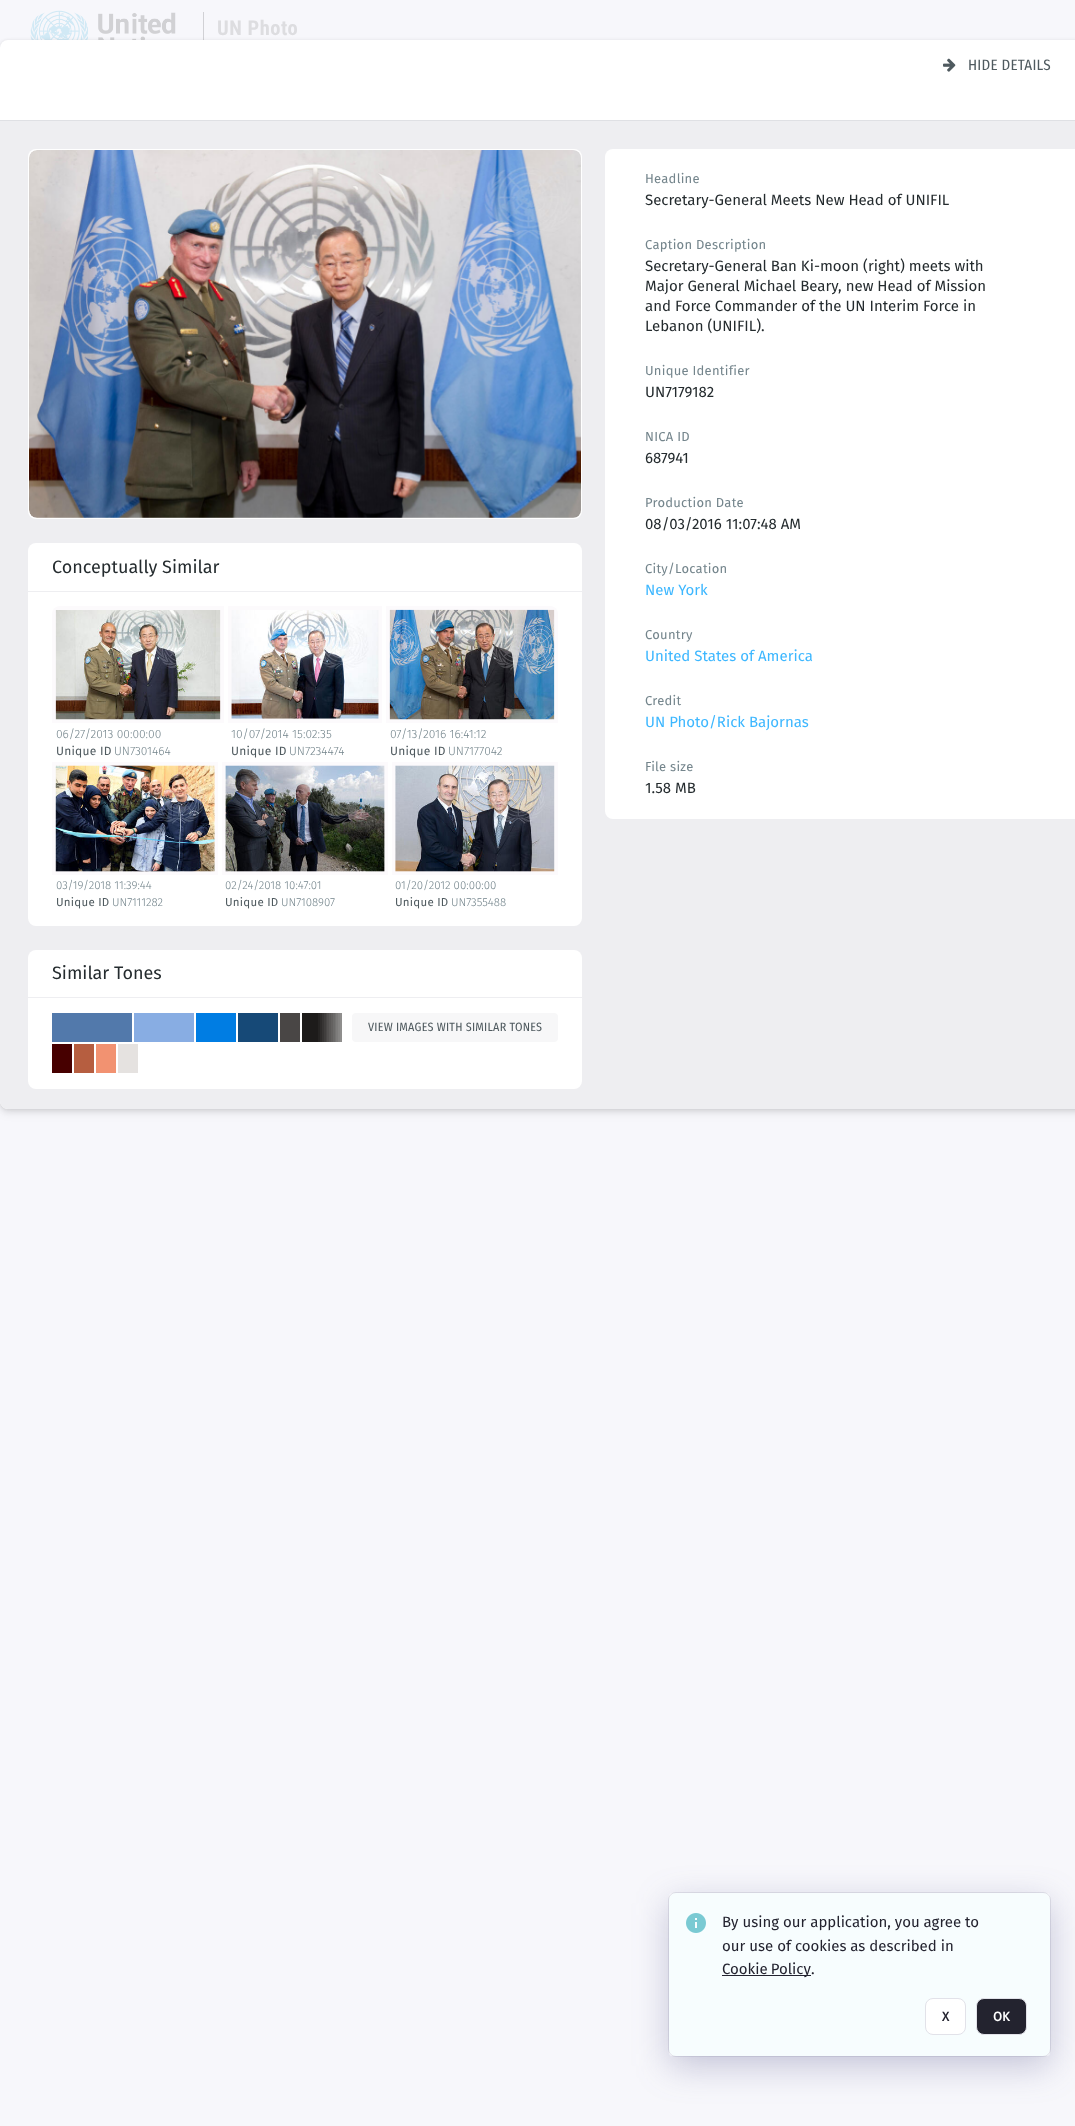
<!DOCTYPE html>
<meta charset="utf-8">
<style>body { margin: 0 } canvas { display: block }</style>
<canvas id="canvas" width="1075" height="2126"></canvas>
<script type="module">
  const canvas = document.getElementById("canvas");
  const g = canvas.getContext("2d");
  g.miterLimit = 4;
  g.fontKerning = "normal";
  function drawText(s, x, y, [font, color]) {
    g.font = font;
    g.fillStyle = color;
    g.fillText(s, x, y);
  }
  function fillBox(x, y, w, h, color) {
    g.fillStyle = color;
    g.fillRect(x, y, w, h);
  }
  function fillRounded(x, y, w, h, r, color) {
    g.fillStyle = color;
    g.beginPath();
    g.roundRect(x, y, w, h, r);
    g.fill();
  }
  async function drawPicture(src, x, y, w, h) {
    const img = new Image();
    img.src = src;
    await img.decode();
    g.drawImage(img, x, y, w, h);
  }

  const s1 = ["bold 20.5px Roboto Condensed", "#DDDDE0"];
  const s2 = ["15px Fira Sans Condensed", "#4F5A5F"];
  const s3 = ["18px Fira Sans", "#242B2E"];
  const s4 = ["300 12px Fira Sans", "#74858C"];
  const s5 = ["12px Fira Sans", "#4F5A5F"];
  const s6 = ["300 11.5px Fira Sans", "#74858C"];
  const s7 = ["11.5px Fira Sans", "#4F5A5F"];
  const s8 = ["12px Fira Sans Condensed", "#4F5A5F"];
  const s9 = ["13px Fira Sans", "#74858C"];
  const s10 = ["15px Fira Sans", "#242B2E"];
  const s11 = ["15px Fira Sans", "#3DB7FF"];
  const s12 = ["15px Fira Sans", "#23232F"];
  const s13 = ["bold 13px Fira Sans", "#23232F"];
  const s14 = ["bold 13px Fira Sans", "#FFFFFF"];

  fillBox(0, 0, 1075, 2126, "#F7F7FB");
  await drawPicture("pic1.png", 30, 10, 146, 30);
  fillBox(203, 12, 1, 28, "#D1D1D5");
  g.letterSpacing = "0.5px";
  drawText("UN Photo", 217, 35, s1);
  g.fillStyle = "rgba(0, 0, 0, 0.08)";
  g.filter = "blur(1.5px)";
  g.beginPath();
  g.roundRect(0, 40, 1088, 1069, 8);
  g.fill();
  g.filter = "none";
  g.fillStyle = "rgba(0, 0, 0, 0.06)";
  g.filter = "blur(4.5px)";
  g.beginPath();
  g.roundRect(0, 45, 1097, 1069, 8);
  g.fill();
  g.filter = "none";
  g.filter = "blur(2.5px)";
  g.beginPath();
  g.roundRect(0, 43, 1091, 1069, 8);
  g.fill();
  g.filter = "none";
  g.fillStyle = "#FFFFFF";
  g.beginPath();
  g.roundRect(0, 40, 1075, 1069, [8, 0, 0, 8]);
  g.fill();
  await drawPicture("pic2.png", 943, 58, 13, 14);
  g.letterSpacing = "0.25px";
  drawText("HIDE DETAILS", 968, 70, s2);
  fillBox(0, 120, 1075, 1, "#DFE0E4");
  g.fillStyle = "#EEEEF1";
  g.beginPath();
  g.roundRect(0, 121, 1075, 988, [0, 0, 0, 8]);
  g.fill();
  fillRounded(28, 149, 554, 370, 8, "#FFFFFF");
  await drawPicture("pic3.png", 29, 150, 552, 368);
  fillRounded(28, 543, 554, 383, 8, "#FFFFFF");
  g.letterSpacing = "0px";
  drawText("Conceptually Similar", 52, 573, s3);
  g.fillStyle = "#FCFAFC";
  g.beginPath();
  g.roundRect(52, 606, 172, 117, [8, 0, 0, 0]);
  g.fill();
  await drawPicture("pic4.png", 55, 610, 166, 110);
  drawText("06/27/2013 00:00:00", 56, 738, s4);
  g.letterSpacing = "0.25px";
  drawText("Unique ID", 56, 755, s5);
  g.letterSpacing = "0px";
  drawText("UN7301464", 114, 755, s4);
  fillBox(228, 606, 154, 117, "#FCFAFC");
  await drawPicture("pic5.png", 231, 610, 148, 109);
  drawText("10/07/2014 15:02:35", 231, 738, s4);
  g.letterSpacing = "0.25px";
  drawText("Unique ID", 231, 755, s5);
  g.letterSpacing = "0px";
  drawText("UN7234474", 289, 755, s4);
  g.fillStyle = "#FCFAFC";
  g.beginPath();
  g.roundRect(386, 606, 172, 117, [0, 8, 0, 0]);
  g.fill();
  await drawPicture("pic6.png", 389, 609, 166, 111);
  drawText("07/13/2016 16:41:12", 390, 738, s4);
  g.letterSpacing = "0.25px";
  drawText("Unique ID", 390, 755, s5);
  g.letterSpacing = "0px";
  drawText("UN7177042", 448, 755, s4);
  fillBox(52, 762, 166, 113, "#FCFAFC");
  await drawPicture("pic7.png", 55, 765, 160, 107);
  drawText("03/19/2018 11:39:44", 56, 889, s6);
  g.letterSpacing = "0.25px";
  drawText("Unique ID", 56, 906, s7);
  g.letterSpacing = "0px";
  drawText("UN7111282", 112, 906, s6);
  fillBox(222, 762, 166, 113, "#FCFAFC");
  await drawPicture("pic8.png", 225, 765, 160, 107);
  drawText("02/24/2018 10:47:01", 225, 889, s6);
  g.letterSpacing = "0.25px";
  drawText("Unique ID", 225, 906, s7);
  g.letterSpacing = "0px";
  drawText("UN7108907", 281, 906, s6);
  fillBox(392, 762, 166, 113, "#FCFAFC");
  await drawPicture("pic9.png", 395, 765, 160, 107);
  drawText("01/20/2012 00:00:00", 395, 889, s6);
  g.letterSpacing = "0.25px";
  drawText("Unique ID", 395, 906, s7);
  g.letterSpacing = "0px";
  drawText("UN7355488", 451, 906, s6);
  fillBox(28, 591, 554, 1, "#EEEEF1");
  fillRounded(28, 950, 554, 139, 8, "#FFFFFF");
  drawText("Similar Tones", 52, 979, s3);
  fillBox(52, 1013, 80, 29, "#5279AB");
  fillBox(134, 1013, 60, 29, "#88ADE3");
  fillBox(196, 1013, 40, 29, "#007DE3");
  fillBox(238, 1013, 40, 29, "#164977");
  fillBox(280, 1013, 20, 29, "#494645");
  await drawPicture("pic10.png", 302, 1013, 40, 29);
  fillBox(52, 1044, 20, 29, "#470000");
  fillBox(74, 1044, 20, 29, "#B65E40");
  fillBox(96, 1044, 20, 29, "#F29271");
  fillBox(118, 1044, 20, 29, "#E5E2E0");
  fillRounded(352, 1013, 206, 29, 4, "#F7F7F8");
  g.letterSpacing = "0.25px";
  drawText("VIEW IMAGES WITH SIMILAR TONES", 368, 1031, s8);
  fillBox(28, 997, 554, 1, "#EEEEF1");
  g.fillStyle = "#FFFFFF";
  g.beginPath();
  g.roundRect(605, 149, 470, 670, [8, 0, 0, 8]);
  g.fill();
  drawText("Headline", 645, 183, s9);
  g.letterSpacing = "0px";
  drawText("Secretary-General Meets New Head of UNIFIL", 645, 205, s10);
  g.letterSpacing = "0.25px";
  drawText("Caption Description", 645, 249, s9);
  g.letterSpacing = "0px";
  drawText("Secretary-General Ban Ki-moon (right) meets with", 645, 271, s10);
  drawText("Major General Michael Beary, new Head of Mission", 645, 291, s10);
  drawText("and Force Commander of the UN Interim Force in", 645, 311, s10);
  drawText("Lebanon (UNIFIL).", 645, 331, s10);
  g.letterSpacing = "0.25px";
  drawText("Unique Identifier", 645, 375, s9);
  g.letterSpacing = "0px";
  drawText("UN7179182", 645, 397, s10);
  g.letterSpacing = "0.25px";
  drawText("NICA ID", 645, 441, s9);
  g.letterSpacing = "0px";
  drawText("687941", 645, 463, s10);
  g.letterSpacing = "0.25px";
  drawText("Production Date", 645, 507, s9);
  g.letterSpacing = "0px";
  drawText("08/03/2016 11:07:48 AM", 645, 529, s10);
  g.letterSpacing = "0.25px";
  drawText("City/Location", 645, 573, s9);
  g.letterSpacing = "0px";
  drawText("New York", 645, 595, s11);
  g.letterSpacing = "0.25px";
  drawText("Country", 645, 639, s9);
  g.letterSpacing = "0px";
  drawText("United States of America", 645, 661, s11);
  g.letterSpacing = "0.25px";
  drawText("Credit", 645, 705, s9);
  g.letterSpacing = "0px";
  drawText("UN Photo/Rick Bajornas", 645, 727, s11);
  g.letterSpacing = "0.25px";
  drawText("File size", 645, 771, s9);
  g.letterSpacing = "0px";
  drawText("1.58 MB", 645, 793, s10);
  g.fillStyle = "#F7FDFE";
  g.beginPath();
  g.roundRect(668.5, 1892.5, 382, 164, 7.5);
  g.fill();
  g.strokeStyle = "#E2E2E9";
  g.stroke();
  g.save();
  g.beginPath();
  g.moveTo(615, 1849);
  g.lineTo(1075, 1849);
  g.lineTo(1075, 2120);
  g.lineTo(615, 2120);
  g.closePath();
  g.moveTo(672, 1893);
  g.lineTo(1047, 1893);
  g.bezierCurveTo(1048.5, 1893, 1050, 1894.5, 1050, 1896);
  g.lineTo(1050, 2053);
  g.bezierCurveTo(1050, 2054.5, 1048.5, 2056, 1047, 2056);
  g.lineTo(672, 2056);
  g.bezierCurveTo(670.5, 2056, 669, 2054.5, 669, 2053);
  g.lineTo(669, 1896);
  g.bezierCurveTo(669, 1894.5, 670.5, 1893, 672, 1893);
  g.closePath();
  g.clip("evenodd");
  g.fillStyle = "rgba(77, 77, 135, 0.3)";
  g.filter = "blur(17.5px)";
  g.beginPath();
  g.roundRect(669, 1903, 381, 163, 3);
  g.fill();
  g.filter = "none";
  g.restore();
  await drawPicture("pic11.png", 686, 1913, 20, 20);
  drawText("By using our application, you agree to", 722, 1927, s12);
  drawText("our use of cookies as described in", 722, 1951, s12);
  fillBox(722, 1975, 89, 1, "#23232F");
  g.wordSpacing = "-1px";
  drawText("Cookie Policy", 722, 1974, s12);
  g.wordSpacing = "0px";
  drawText(".", 811, 1974, s12);
  g.fillStyle = "#FFFFFF";
  g.beginPath();
  g.roundRect(925.5, 1998.5, 40, 36, 7.5);
  g.fill();
  g.stroke();
  drawText("X", 942, 2021, s13);
  g.beginPath();
  g.roundRect(976.5, 1998.5, 50, 36, 7.5);
  g.fill();
  g.stroke();
  drawText("OK", 993, 2021, s14);
</script>
